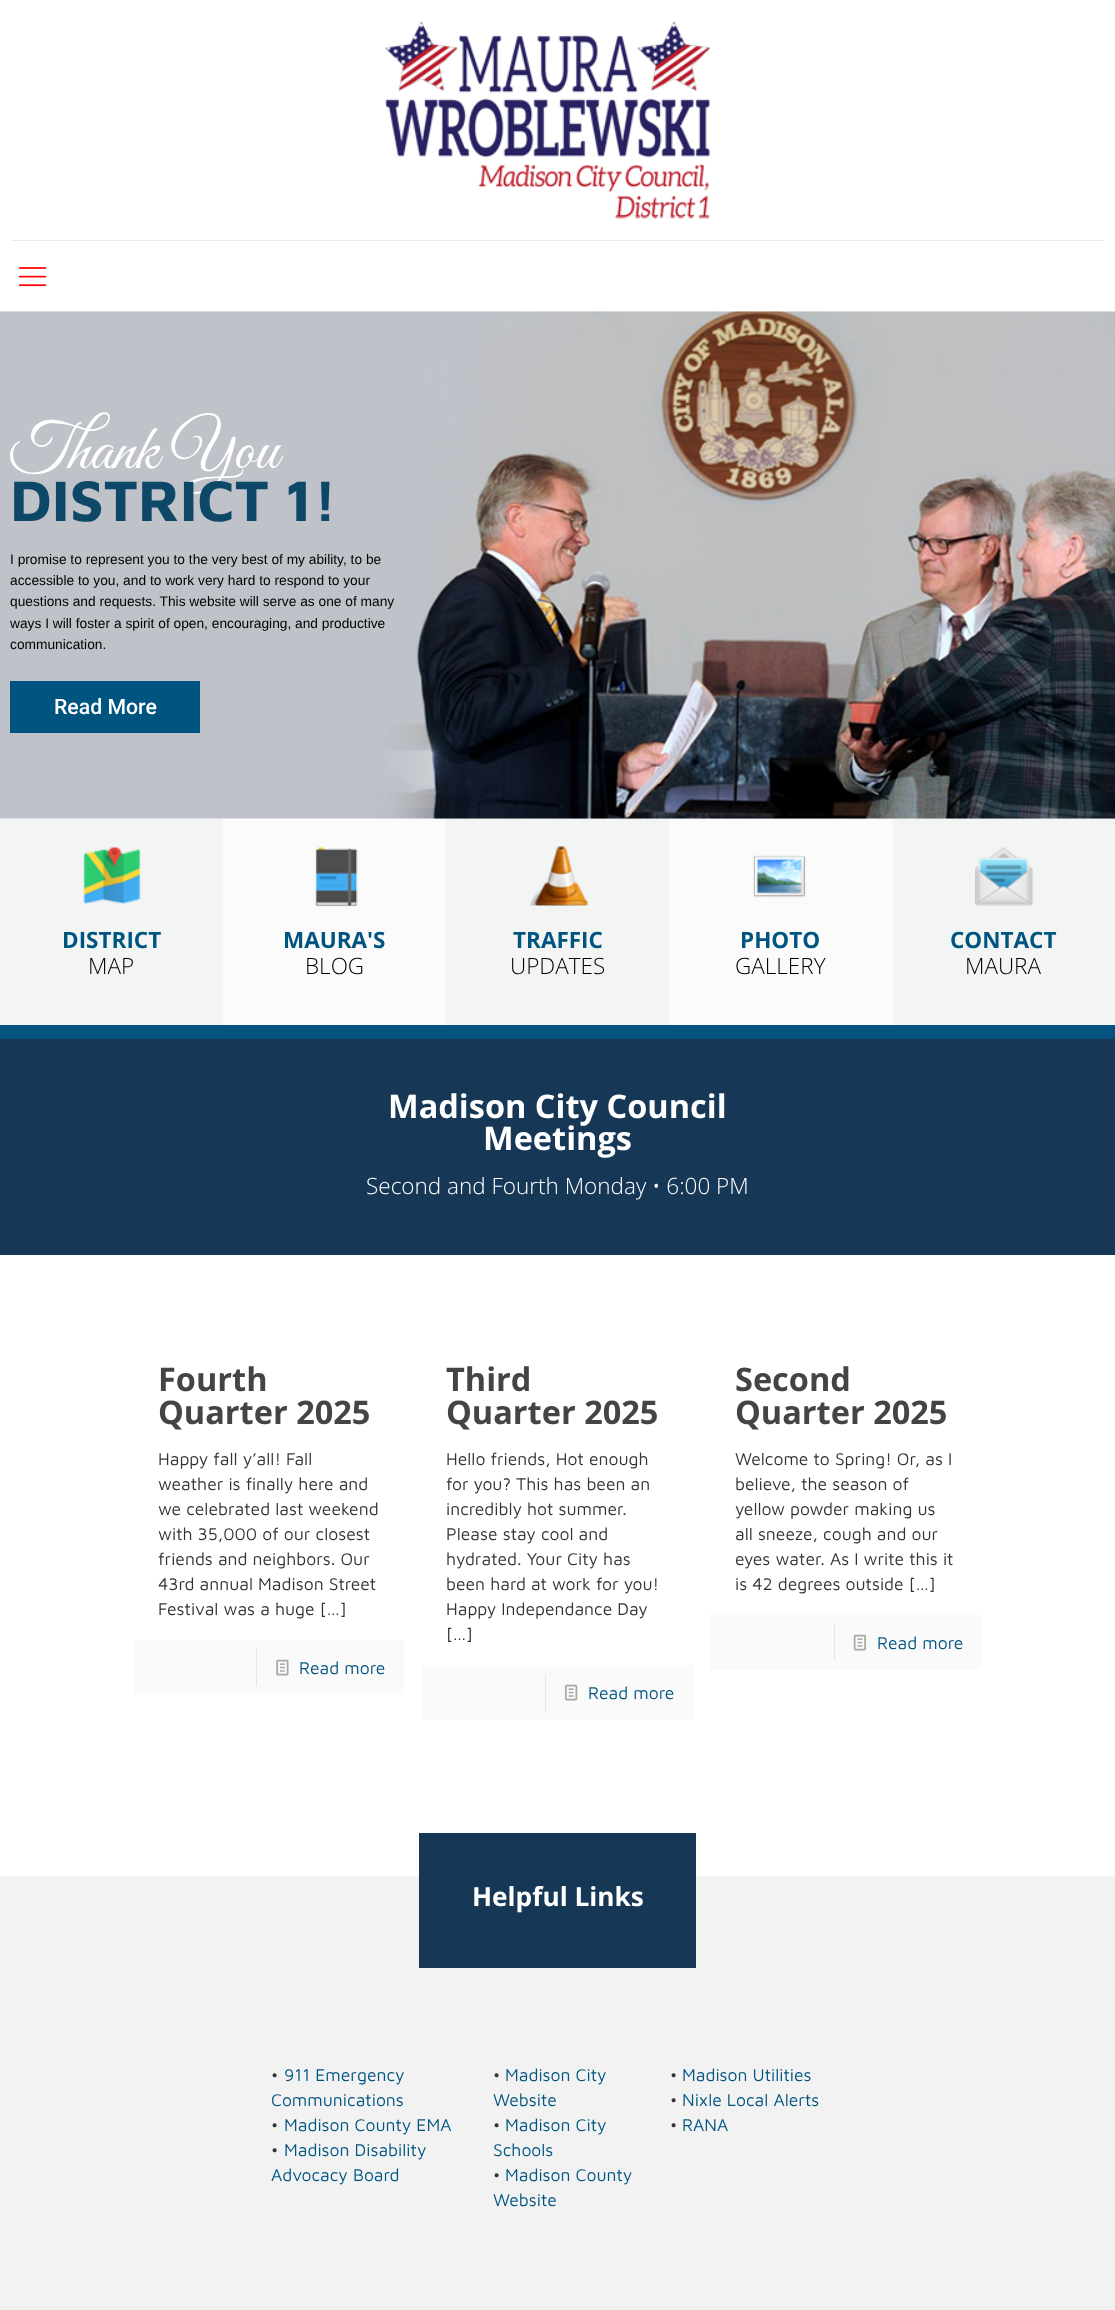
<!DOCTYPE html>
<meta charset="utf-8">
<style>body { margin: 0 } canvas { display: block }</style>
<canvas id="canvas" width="1115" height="2310"></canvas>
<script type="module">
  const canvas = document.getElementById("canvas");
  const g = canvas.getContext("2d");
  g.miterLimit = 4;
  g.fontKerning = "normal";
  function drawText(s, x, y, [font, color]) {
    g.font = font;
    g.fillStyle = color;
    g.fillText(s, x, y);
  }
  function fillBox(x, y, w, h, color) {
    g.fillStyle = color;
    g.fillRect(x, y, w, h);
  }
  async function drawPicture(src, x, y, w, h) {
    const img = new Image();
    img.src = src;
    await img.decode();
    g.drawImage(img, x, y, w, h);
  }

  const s1 = ["65px Great Vibes", "#FFFFFF"];
  const s2 = ["bold 58.75px Maven Pro", "#0D4868"];
  const s3 = ["13.75px Liberation Sans", "#000000"];
  const s4 = ["500 21.25px Roboto", "#FFFFFF"];
  const s5 = ["bold 22.5px Open Sans", "#005580"];
  const s6 = ["300 22.5px Open Sans", "#000000"];
  const s7 = ["bold 32.5px Open Sans", "#FFFFFF"];
  const s8 = ["300 22.5px Open Sans", "#FFFFFF"];
  const s9 = ["bold 32.5px Open Sans", "#444444"];
  const s10 = ["17.5px Maven Pro", "#333333"];
  const s11 = ["17.5px Maven Pro", "#005580"];
  const s12 = ["bold 26.25px Open Sans", "#FFFFFF"];

  fillBox(0, 0, 1115, 2310, "#FFFFFF");
  fillBox(11, 240, 1093, 1, "#EBEBEB");
  await drawPicture("pic1.png", 385, 21, 326, 198);
  await drawPicture("pic2.png", 18, 267, 29, 20);
  await drawPicture("pic3.png", 0, 311, 1115, 508);
  drawText("Thank You", 10, 468, s1);
  drawText("DISTRICT 1!", 10, 521, s2);
  drawText("I promise to represent you to the very best of my ability, to be", 10, 564, s3);
  drawText("accessible to you, and to work very hard to respond to your", 10, 585, s3);
  drawText("questions and requests. This website will serve as one of many", 10, 606, s3);
  drawText("ways I will foster a spirit of open, encouraging, and productive", 10, 628, s3);
  drawText("communication.", 10, 649, s3);
  fillBox(10, 681, 190, 52, "#005580");
  drawText("Read More", 54, 714, s4);
  fillBox(0, 819, 223, 206, "#F3F4F4");
  await drawPicture("pic4.png", 83, 846, 58, 58);
  drawText("DISTRICT", 62, 948, s5);
  drawText("MAP", 88, 974, s6);
  fillBox(223, 819, 223, 206, "#FBFBFB");
  await drawPicture("pic5.png", 315, 846, 43, 61);
  drawText("MAURA'S", 283, 948, s5);
  drawText("BLOG", 305, 974, s6);
  fillBox(446, 819, 223, 206, "#F3F4F4");
  await drawPicture("pic6.png", 529, 846, 59, 60);
  drawText("TRAFFIC", 513, 948, s5);
  drawText("UPDATES", 510, 974, s6);
  fillBox(669, 819, 224, 206, "#FBFBFB");
  await drawPicture("pic7.png", 753, 855, 53, 43);
  drawText("PHOTO", 740, 948, s5);
  drawText("GALLERY", 735, 974, s6);
  fillBox(893, 819, 222, 206, "#F3F4F4");
  await drawPicture("pic8.png", 975, 847, 58, 59);
  drawText("CONTACT", 950, 948, s5);
  drawText("MAURA", 965, 974, s6);
  fillBox(0, 1025, 1115, 14, "#055280");
  fillBox(0, 1039, 1115, 216, "#163756");
  drawText("Madison City Council", 388, 1118, s7);
  drawText("Meetings", 483, 1150, s7);
  drawText("Second and Fourth Monday • 6:00 PM", 366, 1194, s8);
  drawText("Fourth", 158, 1391, s9);
  drawText("Quarter 2025", 158, 1424, s9);
  drawText("Happy fall y’all! Fall", 158, 1465, s10);
  drawText("weather is finally here and", 158, 1490, s10);
  drawText("we celebrated last weekend", 158, 1515, s10);
  drawText("with 35,000 of our closest", 158, 1540, s10);
  drawText("friends and neighbors. Our", 158, 1565, s10);
  drawText("43rd annual Madison Street", 158, 1590, s10);
  drawText("Festival was a huge […]", 158, 1615, s10);
  fillBox(133, 1640, 271, 55, "#FAFAFA");
  fillBox(256, 1649, 1, 37, "#E6E6E6");
  await drawPicture("pic9.png", 276, 1659, 13, 17);
  drawText("Read more", 299, 1674, s11);
  drawText("Third", 446, 1391, s9);
  drawText("Quarter 2025", 446, 1424, s9);
  drawText("Hello friends, Hot enough", 446, 1465, s10);
  drawText("for you? This has been an", 446, 1490, s10);
  drawText("incredibly hot summer.", 446, 1515, s10);
  drawText("Please stay cool and", 446, 1540, s10);
  drawText("hydrated. Your City has", 446, 1565, s10);
  drawText("been hard at work for you!", 446, 1590, s10);
  drawText("Happy Independance Day", 446, 1615, s10);
  drawText("[…]", 446, 1640, s10);
  fillBox(421, 1665, 272, 55, "#FAFAFA");
  fillBox(545, 1674, 1, 37, "#E6E6E6");
  await drawPicture("pic10.png", 565, 1684, 13, 17);
  drawText("Read more", 588, 1699, s11);
  drawText("Second", 735, 1391, s9);
  drawText("Quarter 2025", 735, 1424, s9);
  drawText("Welcome to Spring! Or, as I", 735, 1465, s10);
  drawText("believe, the season of", 735, 1490, s10);
  drawText("yellow powder making us", 735, 1515, s10);
  drawText("all sneeze, cough and our", 735, 1540, s10);
  drawText("eyes water. As I write this it", 735, 1565, s10);
  drawText("is 42 degrees outside […]", 735, 1590, s10);
  fillBox(710, 1615, 271, 55, "#FAFAFA");
  fillBox(834, 1624, 1, 37, "#E6E6E6");
  await drawPicture("pic11.png", 853, 1634, 13, 17);
  drawText("Read more", 877, 1649, s11);
  fillBox(0, 1876, 1115, 434, "#F2F2F2");
  fillBox(419, 1833, 277, 135, "#163756");
  drawText("Helpful Links", 472, 1906, s12);
  drawText("•", 271, 2081, s10);
  drawText("911 Emergency", 284, 2081, s11);
  drawText("Communications", 271, 2106, s11);
  drawText("•", 271, 2131, s10);
  drawText("Madison County EMA", 284, 2131, s11);
  drawText("•", 271, 2156, s10);
  drawText("Madison Disability", 284, 2156, s11);
  drawText("Advocacy Board", 271, 2181, s11);
  drawText("•", 493, 2081, s10);
  drawText("Madison City", 505, 2081, s11);
  drawText("Website", 493, 2106, s11);
  drawText("•", 493, 2131, s10);
  drawText("Madison City", 505, 2131, s11);
  drawText("Schools", 493, 2156, s11);
  drawText("•", 493, 2181, s10);
  drawText("Madison County", 505, 2181, s11);
  drawText("Website", 493, 2206, s11);
  drawText("•", 670, 2081, s10);
  drawText("Madison Utilities", 682, 2081, s11);
  drawText("•", 670, 2106, s10);
  drawText("Nixle Local Alerts", 682, 2106, s11);
  drawText("•", 670, 2131, s10);
  drawText("RANA", 682, 2131, s11);
</script>
